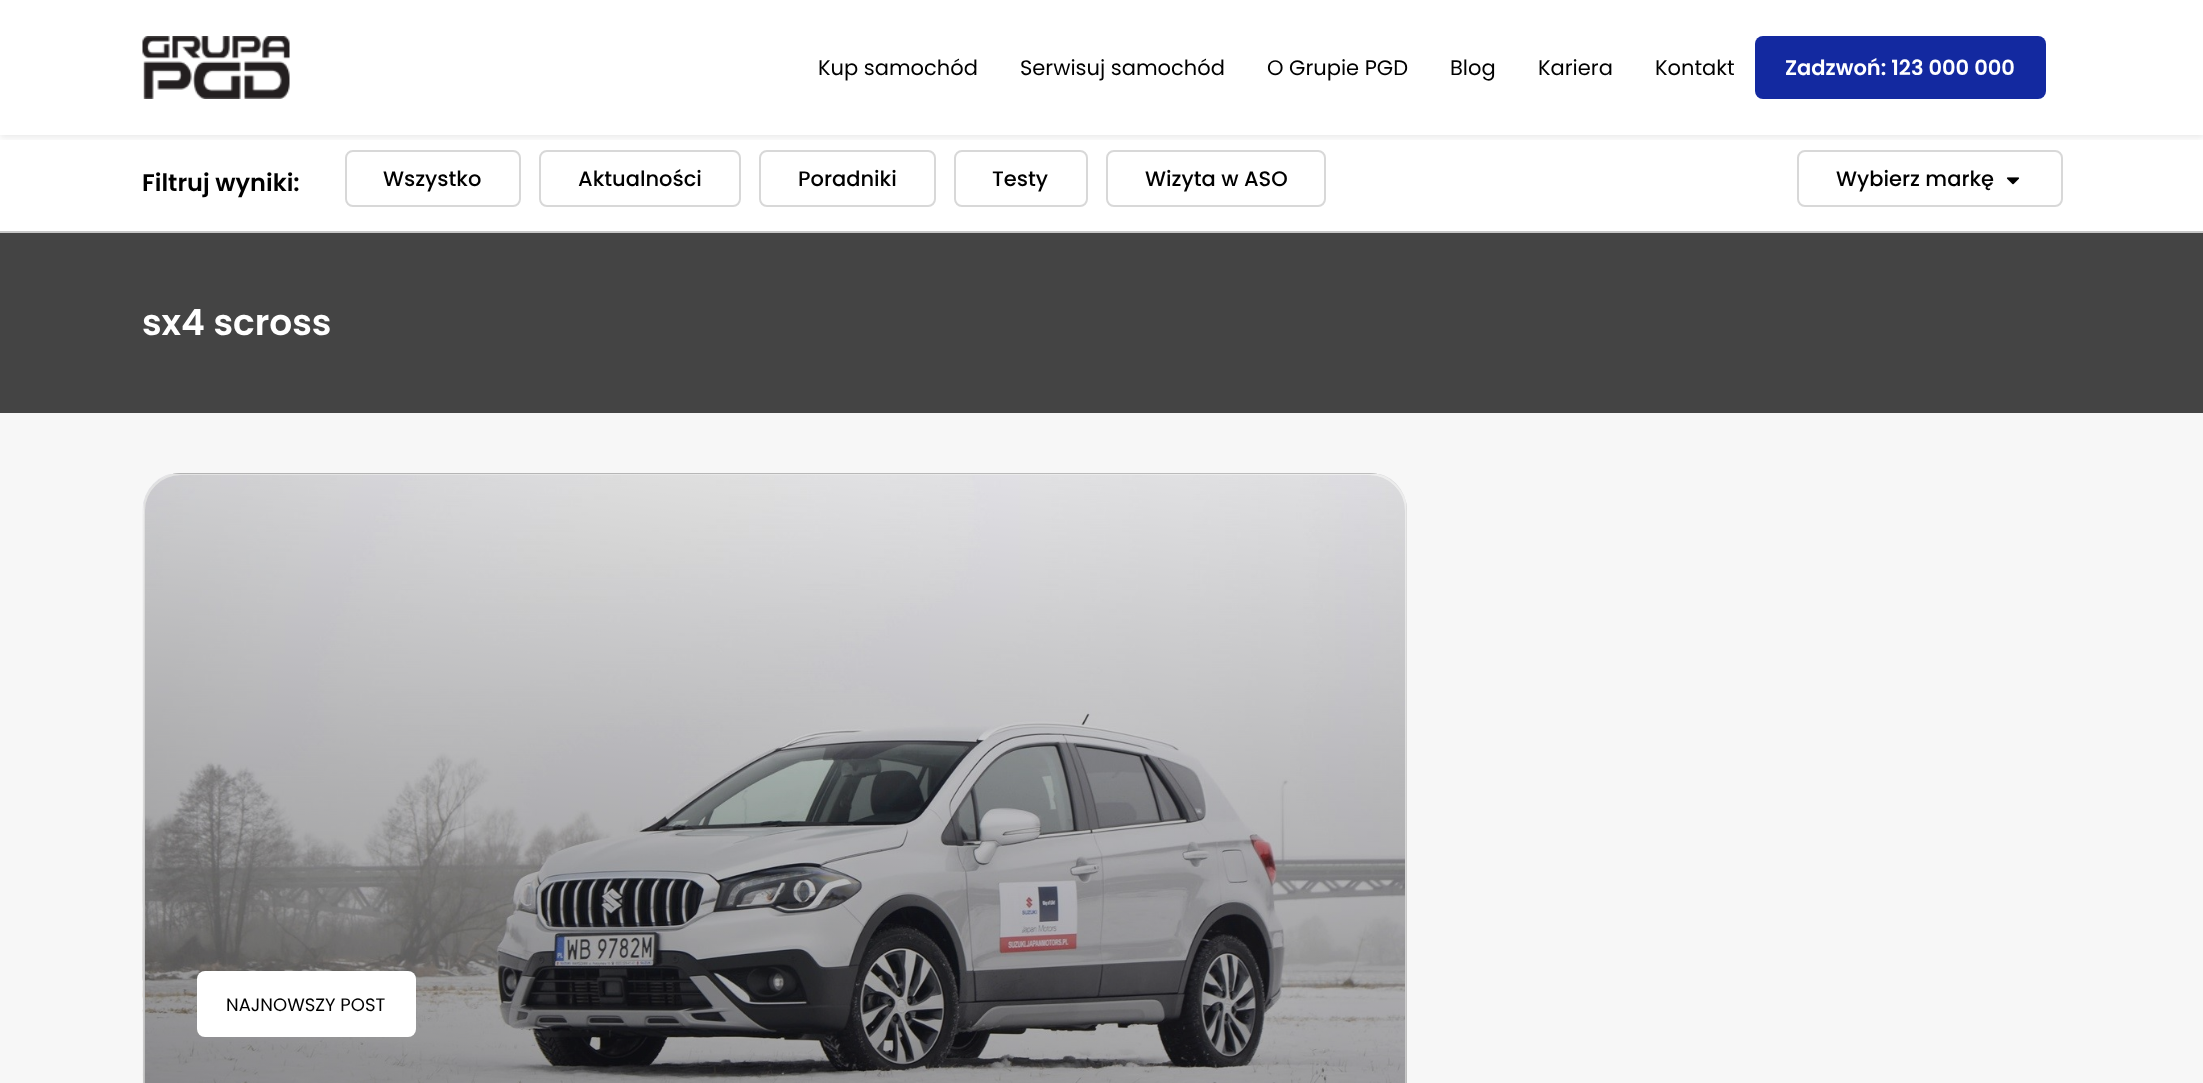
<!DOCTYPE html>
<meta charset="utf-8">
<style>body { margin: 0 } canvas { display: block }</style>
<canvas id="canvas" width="2203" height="1083"></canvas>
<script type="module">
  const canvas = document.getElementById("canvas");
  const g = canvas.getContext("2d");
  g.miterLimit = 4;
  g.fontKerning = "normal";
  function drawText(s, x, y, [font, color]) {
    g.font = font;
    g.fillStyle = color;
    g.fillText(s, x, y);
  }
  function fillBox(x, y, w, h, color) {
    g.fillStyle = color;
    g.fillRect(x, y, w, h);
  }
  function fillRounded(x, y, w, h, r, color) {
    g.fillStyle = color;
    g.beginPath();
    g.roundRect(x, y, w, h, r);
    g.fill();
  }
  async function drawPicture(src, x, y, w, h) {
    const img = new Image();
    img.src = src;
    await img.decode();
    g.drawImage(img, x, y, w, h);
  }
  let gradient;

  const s1 = ["21px Poppins", "#000000"];
  const s2 = ["600 21px Poppins", "#FFFFFF"];
  const s3 = ["600 24px Poppins", "#000000"];
  const s4 = ["500 21px Poppins", "#000000"];
  const s5 = ["600 36px Poppins", "#FFFFFF"];
  const s6 = ["18px Poppins", "#000000"];

  fillBox(0, 0, 2203, 1083, "#FFFFFF");
  g.save();
  g.beginPath();
  g.rect(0, 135, 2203, 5);
  g.clip();
  g.fillStyle = "rgba(0, 0, 0, 0.08)";
  g.filter = "blur(3px)";
  g.beginPath();
  g.rect(0, 3, 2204, 135);
  g.fill();
  g.filter = "none";
  g.restore();
  await drawPicture("pic1.png", 142, 36, 148, 63);
  drawText("Kup samochód", 818, 75, s1);
  drawText("Serwisuj samochód", 1020, 75, s1);
  drawText("O Grupie PGD", 1267, 75, s1);
  drawText("Blog", 1450, 75, s1);
  drawText("Kariera", 1538, 75, s1);
  drawText("Kontakt", 1655, 75, s1);
  fillRounded(1755, 36, 291, 63, 8, "#1329A0");
  drawText("Zadzwoń: 123 000 000", 1785, 75, s2);
  fillBox(0, 231, 2203, 2, "#C7C7C7");
  drawText("Filtruj wyniki:", 142, 191, s3);
  g.beginPath();
  g.roundRect(346, 151, 174, 55, 7);
  g.strokeStyle = "#D8D8D8";
  g.lineWidth = 2;
  g.stroke();
  drawText("Wszystko", 383, 186, s4);
  g.beginPath();
  g.roundRect(540, 151, 200, 55, 7);
  g.stroke();
  drawText("Aktualności", 578, 186, s4);
  g.beginPath();
  g.roundRect(760, 151, 175, 55, 7);
  g.stroke();
  drawText("Poradniki", 798, 186, s4);
  g.beginPath();
  g.roundRect(955, 151, 132, 55, 7);
  g.stroke();
  drawText("Testy", 992, 186, s4);
  g.beginPath();
  g.roundRect(1107, 151, 218, 55, 7);
  g.stroke();
  drawText("Wizyta w ASO", 1145, 186, s4);
  g.beginPath();
  g.roundRect(1798, 151, 264, 55, 7);
  g.stroke();
  drawText("Wybierz markę", 1836, 186, s4);
  await drawPicture("pic2.png", 2006, 177, 14, 8);
  fillBox(0, 233, 2203, 180, "#444444");
  drawText("sx4 scross", 142, 335, s5);
  fillBox(0, 413, 2203, 670, "#F7F7F7");
  await drawPicture("pic3.png", 142, 474, 1265, 609);
  g.beginPath();
  g.roundRect(144, 474, 1262, 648, 37);
  g.strokeStyle = "#EEEEEE";
  g.stroke();
  g.save();
  g.beginPath();
  g.roundRect(143, 473, 1264, 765, 38);
  g.clip();
  gradient = g.createLinearGradient(839, -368, 710, 554);
  gradient.addColorStop(0, "rgba(0, 0, 0, 0)");
  gradient.addColorStop(1, "rgba(0, 0, 0, 0.5)");
  g.fillStyle = gradient;
  g.fillRect(173, 473, 1204, 1);
  g.restore();
  gradient = g.createLinearGradient(-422, 394, -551, 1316);
  gradient.addColorStop(0, "rgba(0, 0, 0, 0)");
  gradient.addColorStop(1, "rgba(0, 0, 0, 0.5)");
  g.fillStyle = gradient;
  g.fillRect(143, 514, 1, 569);
  g.save();
  g.beginPath();
  g.roundRect(143, 473, 1264, 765, 38);
  g.clip();
  gradient = g.createLinearGradient(839, 394, 710, 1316);
  gradient.addColorStop(0, "rgba(0, 0, 0, 0)");
  gradient.addColorStop(1, "rgba(0, 0, 0, 0.5)");
  g.fillStyle = gradient;
  g.fillRect(144, 474, 1262, 609);
  gradient = g.createLinearGradient(2101, 394, 1972, 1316);
  gradient.addColorStop(0, "rgba(0, 0, 0, 0)");
  gradient.addColorStop(1, "rgba(0, 0, 0, 0.5)");
  g.fillStyle = gradient;
  g.fillRect(1406, 503, 1, 580);
  g.restore();
  g.beginPath();
  g.roundRect(144, 474, 1262, 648, 37);
  g.strokeStyle = "rgba(238, 238, 238, 0.5)";
  g.stroke();
  fillRounded(197, 971, 219, 66, 8, "#FFFFFF");
  drawText("NAJNOWSZY POST", 226, 1011, s6);
</script>
